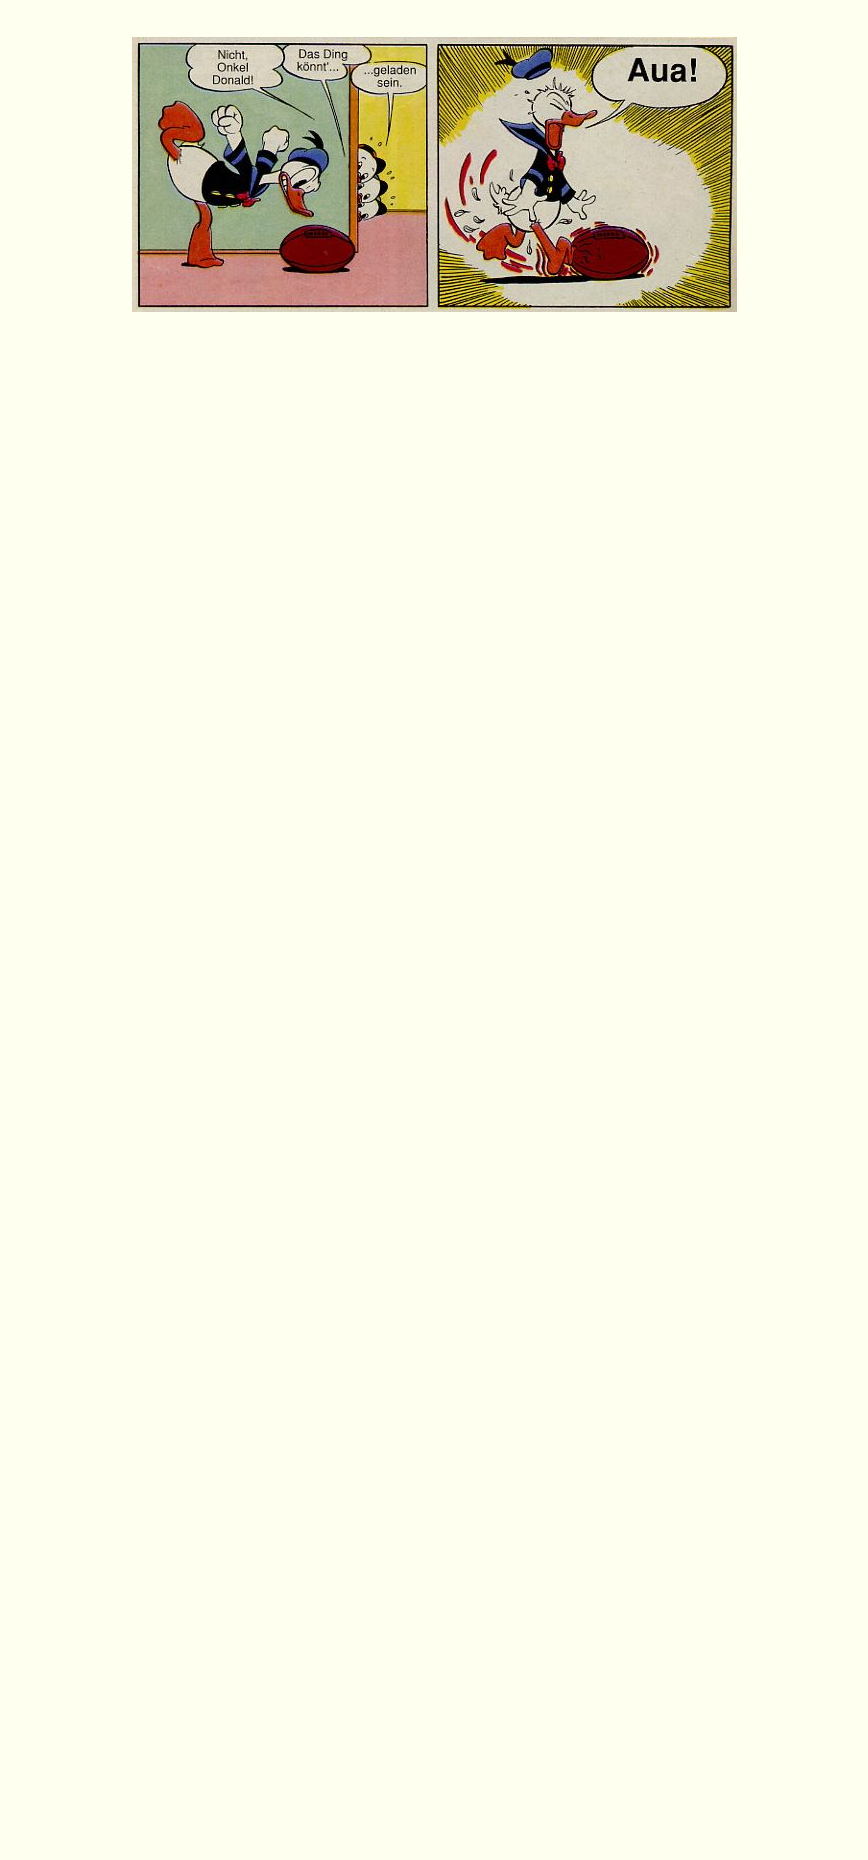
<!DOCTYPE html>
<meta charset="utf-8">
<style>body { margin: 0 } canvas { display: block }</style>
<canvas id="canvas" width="868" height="1860"></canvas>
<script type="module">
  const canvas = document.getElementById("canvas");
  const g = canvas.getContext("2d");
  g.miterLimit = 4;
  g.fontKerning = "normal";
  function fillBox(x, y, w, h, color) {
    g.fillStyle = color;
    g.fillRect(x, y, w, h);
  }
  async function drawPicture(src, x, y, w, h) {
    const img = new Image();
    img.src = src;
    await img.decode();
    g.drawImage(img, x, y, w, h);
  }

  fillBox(0, 0, 868, 1860, "#FFFFEF");
  await drawPicture("pic1.png", 132, 37, 605, 275);
</script>
